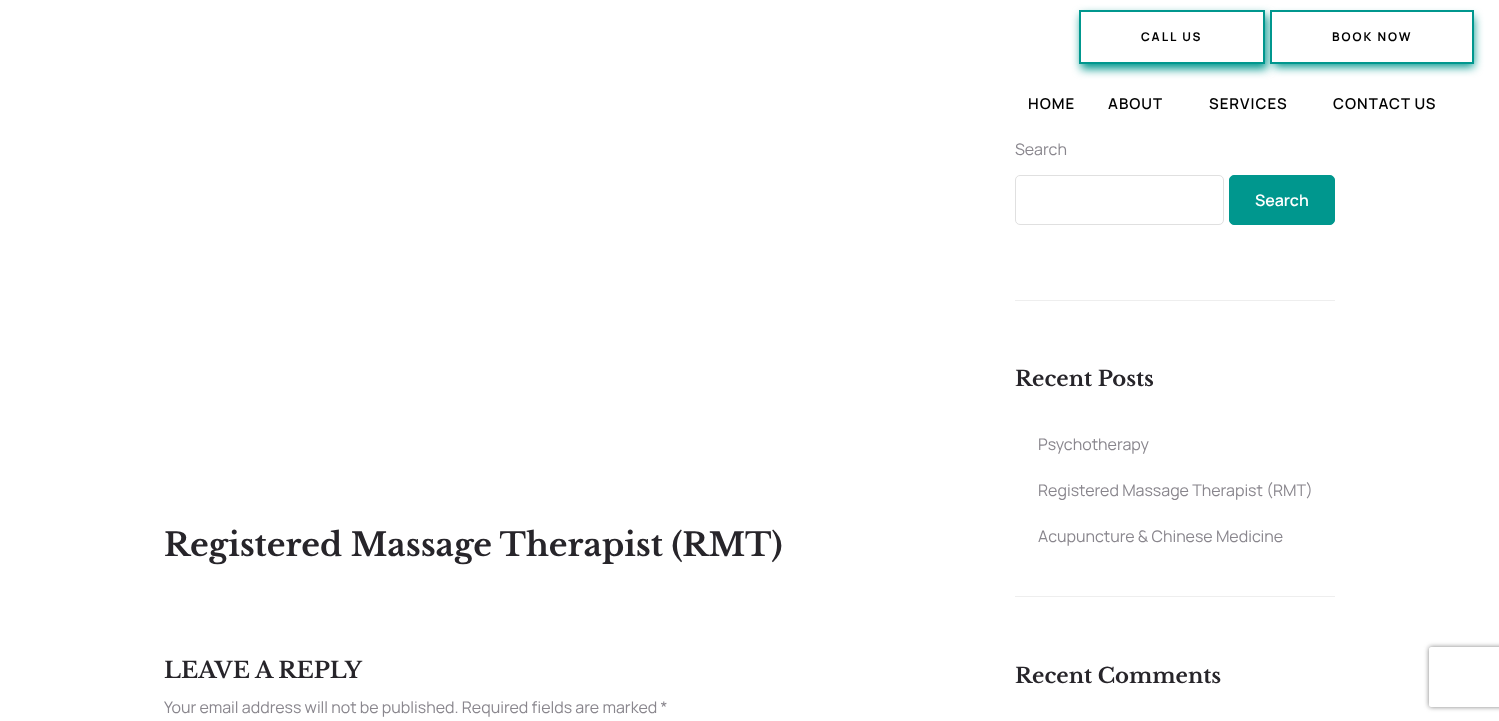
<!DOCTYPE html>
<meta charset="utf-8">
<style>body { margin: 0 } canvas { display: block }</style>
<canvas id="canvas" width="1499" height="721"></canvas>
<script type="module">
  const canvas = document.getElementById("canvas");
  const g = canvas.getContext("2d");
  g.miterLimit = 4;
  g.fontKerning = "normal";
  function drawText(s, x, y, [font, color]) {
    g.font = font;
    g.fillStyle = color;
    g.fillText(s, x, y);
  }
  function fillBox(x, y, w, h, color) {
    g.fillStyle = color;
    g.fillRect(x, y, w, h);
  }

  const s1 = ["bold 12px Manrope", "#000000"];
  const s2 = ["600 15px Manrope", "#000000"];
  const s3 = ["bold 32px Libre Baskerville", "#27252A"];
  const s4 = ["bold 22.5px Libre Baskerville", "#27252A"];
  const s5 = ["16px Manrope", "#89868D"];
  const s6 = ["600 16px Manrope", "#FFFFFF"];
  const s7 = ["bold 21.1px Libre Baskerville", "#27252A"];

  fillBox(0, 0, 1499, 721, "#FFFFFF");
  g.fillStyle = "#00978E";
  g.filter = "blur(5px)";
  g.beginPath();
  g.roundRect(1081, 15, 186, 54, 1);
  g.fill();
  g.filter = "none";
  g.fillStyle = "#FFFFFF";
  g.beginPath();
  g.rect(1080, 11, 184, 52);
  g.fill();
  g.strokeStyle = "#00978E";
  g.lineWidth = 2;
  g.stroke();
  g.letterSpacing = "2px";
  drawText("CALL US", 1141, 41, s1);
  g.fillStyle = "#00978E";
  g.filter = "blur(5px)";
  g.beginPath();
  g.rect(1274, 17, 200, 50);
  g.fill();
  g.filter = "none";
  g.fillStyle = "#FFFFFF";
  g.beginPath();
  g.rect(1271, 11, 202, 52);
  g.fill();
  g.stroke();
  drawText("BOOK NOW", 1332, 41, s1);
  g.letterSpacing = "1px";
  drawText("HOME", 1028, 109, s2);
  drawText("ABOUT", 1108, 109, s2);
  drawText("SERVICES", 1209, 109, s2);
  drawText("CONTACT US", 1333, 109, s2);
  g.letterSpacing = "0px";
  drawText("Registered Massage Therapist (RMT)", 164, 556, s3);
  drawText("LEAVE A REPLY", 164, 678, s4);
  drawText("Your email address will not be published. Required fields are marked *", 164, 713, s5);
  fillBox(1015, 300, 320, 1, "#EEEEEE");
  drawText("Search", 1015, 155, s5);
  g.beginPath();
  g.roundRect(1015.5, 175.5, 208, 49, 4.5);
  g.strokeStyle = "#E0E0E0";
  g.lineWidth = 1;
  g.stroke();
  g.fillStyle = "#00978E";
  g.beginPath();
  g.roundRect(1229.5, 175.5, 105, 49, 4.5);
  g.fill();
  g.strokeStyle = "#00978E";
  g.stroke();
  drawText("Search", 1255, 206, s6);
  fillBox(1015, 596, 320, 1, "#EEEEEE");
  drawText("Recent Posts", 1015, 386, s7);
  drawText("Psychotherapy", 1038, 450, s5);
  drawText("Registered Massage Therapist (RMT)", 1038, 496, s5);
  drawText("Acupuncture & Chinese Medicine", 1038, 542, s5);
  drawText("Recent Comments", 1015, 683, s7);
  g.save();
  g.beginPath();
  g.moveTo(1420, 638);
  g.lineTo(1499, 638);
  g.lineTo(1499, 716);
  g.lineTo(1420, 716);
  g.closePath();
  g.moveTo(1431, 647);
  g.lineTo(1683, 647);
  g.bezierCurveTo(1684, 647, 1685, 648, 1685, 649);
  g.lineTo(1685, 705);
  g.bezierCurveTo(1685, 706, 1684, 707, 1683, 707);
  g.lineTo(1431, 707);
  g.bezierCurveTo(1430, 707, 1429, 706, 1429, 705);
  g.lineTo(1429, 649);
  g.bezierCurveTo(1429, 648, 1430, 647, 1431, 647);
  g.closePath();
  g.clip("evenodd");
  g.fillStyle = "#808080";
  g.filter = "blur(2.5px)";
  g.beginPath();
  g.roundRect(1429, 647, 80, 60, 2);
  g.fill();
  g.filter = "none";
  g.restore();
</script>
